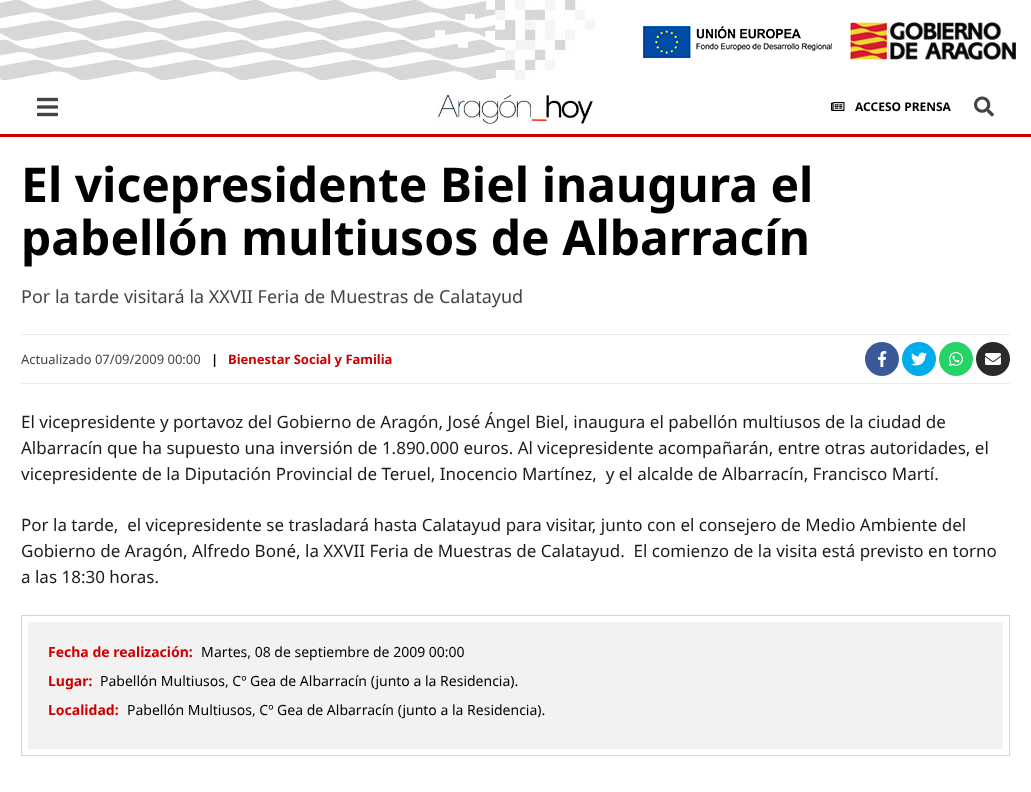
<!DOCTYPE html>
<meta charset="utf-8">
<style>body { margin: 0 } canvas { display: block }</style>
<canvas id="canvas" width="1031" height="792"></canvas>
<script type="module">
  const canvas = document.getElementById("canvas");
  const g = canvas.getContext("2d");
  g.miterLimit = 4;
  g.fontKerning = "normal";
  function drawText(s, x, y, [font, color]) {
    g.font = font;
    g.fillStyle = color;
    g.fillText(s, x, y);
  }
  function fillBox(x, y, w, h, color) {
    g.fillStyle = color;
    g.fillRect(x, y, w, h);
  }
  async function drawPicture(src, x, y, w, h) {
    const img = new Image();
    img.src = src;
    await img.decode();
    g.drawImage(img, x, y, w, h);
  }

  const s1 = ["bold 12px Noto Sans", "#000000"];
  const s2 = ["bold 48px Noto Sans", "#000000"];
  const s3 = ["18px Noto Sans", "#444444"];
  const s4 = ["13px Noto Sans", "#444444"];
  const s5 = ["bold 13px Noto Sans", "#000000"];
  const s6 = ["bold 13px Noto Sans", "#CC0000"];
  const s7 = ["17px Noto Sans", "#1E1A19"];
  const s8 = ["bold 14px Noto Sans", "#CC0000"];
  const s9 = ["14px 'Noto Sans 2'", "#000000"];
  const s10 = ["14px Noto Sans", "#000000"];

  fillBox(0, 0, 1031, 792, "#FFFFFF");
  await drawPicture("pic1.png", 0, 0, 595, 80);
  await drawPicture("pic2.png", 643, 26, 189, 33);
  await drawPicture("pic3.png", 849, 22, 167, 38);
  fillBox(0, 134, 1031, 3, "#CC0000");
  await drawPicture("pic4.png", 37, 97, 21, 20);
  await drawPicture("pic5.png", 438, 94, 155, 30);
  await drawPicture("pic6.png", 831, 102, 14, 9);
  drawText("ACCESO PRENSA", 855, 111, s1);
  await drawPicture("pic7.png", 974, 96, 20, 21);
  drawText("El vicepresidente Biel inaugura el", 21, 202, s2);
  drawText("pabellón multiusos de Albarracín", 21, 255, s2);
  drawText("Por la tarde visitará la XXVII Feria de Muestras de Calatayud", 21, 303, s3);
  fillBox(21, 334, 989, 1, "#ECEAEA");
  fillBox(21, 383, 989, 1, "#ECEAEA");
  drawText("Actualizado 07/09/2009 00:00", 21, 364, s4);
  drawText("|", 211, 364, s5);
  drawText("Bienestar Social y Familia", 228, 364, s6);
  g.fillStyle = "#3B5998";
  g.beginPath();
  g.arc(882, 359, 17, 0, Math.PI * 2);
  g.fill();
  await drawPicture("pic8.png", 878, 351, 9, 16);
  g.fillStyle = "#00ACED";
  g.beginPath();
  g.arc(919, 359, 17, 0, Math.PI * 2);
  g.fill();
  await drawPicture("pic9.png", 911, 352, 16, 14);
  g.fillStyle = "#25D366";
  g.beginPath();
  g.arc(956, 359, 17, 0, Math.PI * 2);
  g.fill();
  await drawPicture("pic10.png", 949, 352, 14, 14);
  g.fillStyle = "#2A2A2A";
  g.beginPath();
  g.arc(993, 359, 17, 0, Math.PI * 2);
  g.fill();
  await drawPicture("pic11.png", 985, 353, 16, 12);
  drawText("El vicepresidente y portavoz del Gobierno de Aragón, José Ángel Biel, inaugura el pabellón multiusos de la ciudad de", 21, 428, s7);
  drawText("Albarracín que ha supuesto una inversión de 1.890.000 euros. Al vicepresidente acompañarán, entre otras autoridades, el", 21, 454, s7);
  drawText("vicepresidente de la Diputación Provincial de Teruel, Inocencio Martínez,  y el alcalde de Albarracín, Francisco Martí.", 21, 480, s7);
  drawText("Por la tarde,  el vicepresidente se trasladará hasta Calatayud para visitar, junto con el consejero de Medio Ambiente del", 21, 531, s7);
  drawText("Gobierno de Aragón, Alfredo Boné, la XXVII Feria de Muestras de Calatayud.  El comienzo de la visita está previsto en torno", 21, 557, s7);
  drawText("a las 18:30 horas.", 21, 583, s7);
  g.strokeStyle = "#D5D5D5";
  g.strokeRect(21.5, 615.5, 988, 140);
  fillBox(28, 622, 975, 127, "#F2F2F2");
  drawText("Fecha de realización:", 48, 657, s8);
  drawText("M", 201, 657, s9);
  drawText("artes, 08 de septiembre de 2009 00:00", 214, 657, s10);
  drawText("Lugar:", 48, 686, s8);
  drawText("Pabellón Multiusos, Cº Gea de Albarracín (junto a la Residencia).", 100, 686, s10);
  drawText("Localidad:", 48, 715, s8);
  drawText("Pabellón Multiusos, Cº Gea de Albarracín (junto a la Residencia).", 127, 715, s10);
</script>
